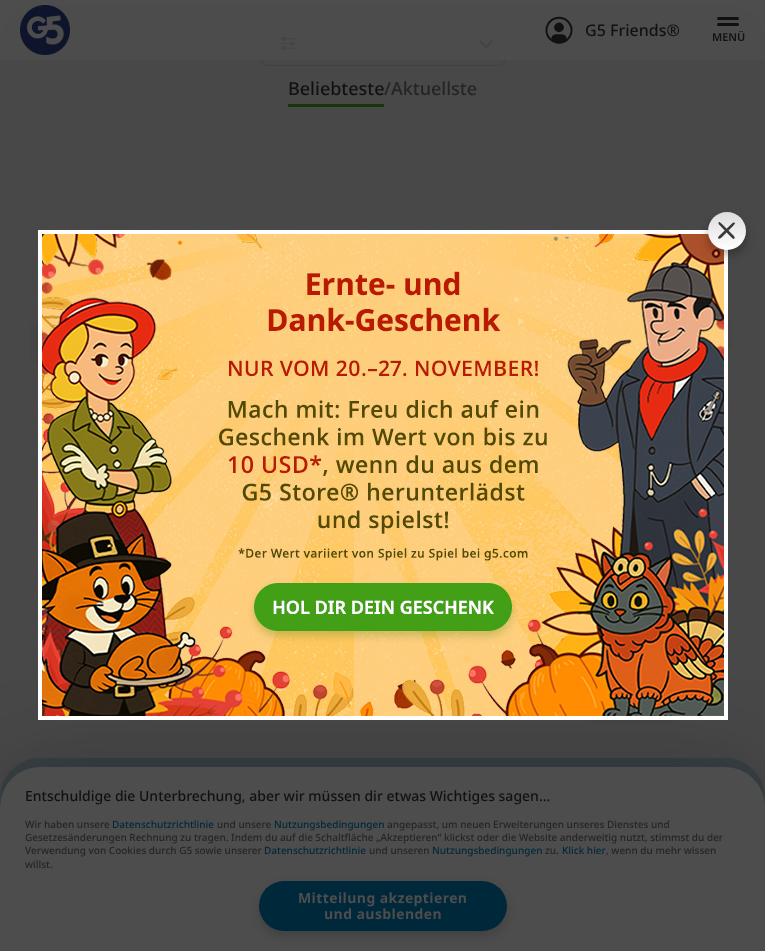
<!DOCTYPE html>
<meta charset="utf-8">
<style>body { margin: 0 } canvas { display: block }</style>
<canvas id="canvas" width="765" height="951"></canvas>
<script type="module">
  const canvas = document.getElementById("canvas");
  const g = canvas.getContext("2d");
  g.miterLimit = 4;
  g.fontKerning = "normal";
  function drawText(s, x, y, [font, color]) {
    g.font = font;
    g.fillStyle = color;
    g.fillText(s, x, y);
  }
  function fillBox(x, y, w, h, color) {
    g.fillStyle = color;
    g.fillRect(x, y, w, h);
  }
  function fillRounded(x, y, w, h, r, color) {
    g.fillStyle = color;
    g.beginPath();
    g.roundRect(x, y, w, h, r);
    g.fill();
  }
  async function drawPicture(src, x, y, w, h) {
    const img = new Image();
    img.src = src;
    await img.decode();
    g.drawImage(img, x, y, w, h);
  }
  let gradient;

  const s1 = ["500 16px Noto Sans", "#111111"];
  const s2 = ["600 11px Noto Sans", "#111111"];
  const s3 = ["500 18px Noto Sans", "#111111"];
  const s4 = ["500 18px Noto Sans", "#252525"];
  const s5 = ["500 14px Noto Sans", "#111111"];
  const s6 = ["500 10px Noto Sans", "#252525"];
  const s7 = ["500 10px Noto Sans", "#00283B"];
  const s8 = ["bold 14px Noto Sans", "#4D4D4D"];

  fillBox(0, 0, 765, 951, "#4D4D4D");
  g.fillStyle = "#484848";
  g.beginPath();
  g.moveTo(40, 5);
  g.lineTo(725, 5);
  g.bezierCurveTo(747, 5, 765, 23, 765, 45);
  g.lineTo(765, 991);
  g.lineTo(0, 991);
  g.lineTo(0, 45);
  g.bezierCurveTo(0, 23, 18, 5, 40, 5);
  g.closePath();
  g.fill();
  g.beginPath();
  g.roundRect(260.5, 21.5, 245, 44, 7.5);
  g.strokeStyle = "#404142";
  g.stroke();
  await drawPicture("pic3.png", 279, 36, 18, 15);
  await drawPicture("pic4.png", 479, 40, 14, 8);
  fillBox(0, 5, 765, 55, "rgba(77, 77, 77, 0.86)");
  await drawPicture("pic1.png", 20, 5, 50, 50);
  await drawPicture("pic2.png", 545, 16, 28, 28);
  drawText("G5 Friends®", 585, 36, s1);
  fillRounded(717, 17, 22, 3, 1.5, "#111111");
  fillRounded(717, 23, 22, 3, 1.5, "#111111");
  drawText("MENÜ", 712, 41, s2);
  drawText("Beliebteste", 288, 95, s3);
  fillBox(288, 104, 96, 3, "#1C340D");
  drawText("/Aktuellste", 384, 95, s4);
  await drawPicture("pic5.png", 29, 322, 9, 42);
  await drawPicture("pic6.png", 728, 319, 4, 30);
  await drawPicture("pic7.png", 127, 720, 20, 1);
  await drawPicture("pic8.png", 590, 720, 83, 4);
  g.fillStyle = "#374044";
  g.beginPath();
  g.moveTo(40, 758);
  g.lineTo(725, 758);
  g.bezierCurveTo(747, 758, 765, 776, 765, 798);
  g.lineTo(765, 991);
  g.lineTo(0, 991);
  g.lineTo(0, 798);
  g.bezierCurveTo(0, 776, 18, 758, 40, 758);
  g.closePath();
  g.fill();
  g.fillStyle = "rgba(16, 17, 18, 0.22)";
  g.filter = "blur(40px)";
  g.beginPath();
  g.roundRect(0, 757, 765, 184, 40);
  g.fill();
  g.filter = "none";
  await drawPicture("pic9.png", 38, 230, 690, 490);
  g.fillStyle = "rgba(0, 0, 0, 0.3)";
  g.filter = "blur(5px)";
  g.beginPath();
  g.roundRect(708, 217, 38, 38, 19);
  g.fill();
  g.filter = "none";
  gradient = g.createLinearGradient(727, 212, 727, 250);
  gradient.addColorStop(0, "#DCDCDC");
  gradient.addColorStop(1, "#FFFFFF");
  g.fillStyle = gradient;
  g.beginPath();
  g.arc(727, 231, 19, 0, Math.PI * 2);
  g.fill();
  g.fillStyle = "#393939";
  g.beginPath();
  g.moveTo(722, 224);
  g.lineTo(733.5, 235.5);
  g.bezierCurveTo(734, 236, 736, 238.5, 733.5, 239);
  g.lineTo(732, 238);
  g.lineTo(719, 224.5);
  g.bezierCurveTo(718.5, 224, 718, 222, 719.5, 222);
  g.closePath();
  g.fill();
  g.beginPath();
  g.moveTo(733, 226);
  g.lineTo(721.5, 237.5);
  g.bezierCurveTo(721, 238, 718.5, 240, 718, 237.5);
  g.lineTo(719, 236);
  g.lineTo(732.5, 223);
  g.bezierCurveTo(733, 222.5, 735, 222, 735, 223.5);
  g.closePath();
  g.fill();
  g.fillStyle = "#4D4D4D";
  g.beginPath();
  g.roundRect(0, 767, 765, 184, [40, 40, 0, 0]);
  g.fill();
  drawText("Entschuldige die Unterbrechung, aber wir müssen dir etwas Wichtiges sagen…", 25, 801, s5);
  drawText("Wir haben unsere", 25, 828, s6);
  drawText("Datenschutzrichtlinie", 112, 828, s7);
  drawText("und unsere", 217, 828, s6);
  drawText("Nutzungsbedingungen", 274, 828, s7);
  drawText("angepasst, um neuen Erweiterungen unseres Dienstes und", 387, 828, s6);
  drawText("Gesetzesänderungen Rechnung zu tragen. Indem du auf die Schaltfläche „Akzeptieren“ klickst oder die Website anderweitig nutzt, stimmst du der", 25, 841, s6);
  drawText("Verwendung von Cookies durch G5 sowie unserer", 25, 854, s6);
  drawText("Datenschutzrichtlinie", 264, 854, s7);
  drawText("und unseren", 369, 854, s6);
  drawText("Nutzungsbedingungen", 432, 854, s7);
  drawText("zu.", 545, 854, s6);
  drawText("Klick hier", 562, 854, s7);
  drawText(", wenn du mehr wissen", 606, 854, s6);
  drawText("willst.", 25, 868, s6);
  g.fillStyle = "rgba(37, 37, 37, 0.3)";
  g.filter = "blur(5px)";
  g.beginPath();
  g.roundRect(259, 886, 248, 50, 25);
  g.fill();
  g.filter = "none";
  fillRounded(259, 881, 248, 50, 25, "#00283B");
  g.letterSpacing = "0.4px";
  drawText("Mitteilung akzeptieren", 298, 903, s8);
  drawText("und ausblenden", 324, 919, s8);
</script>
